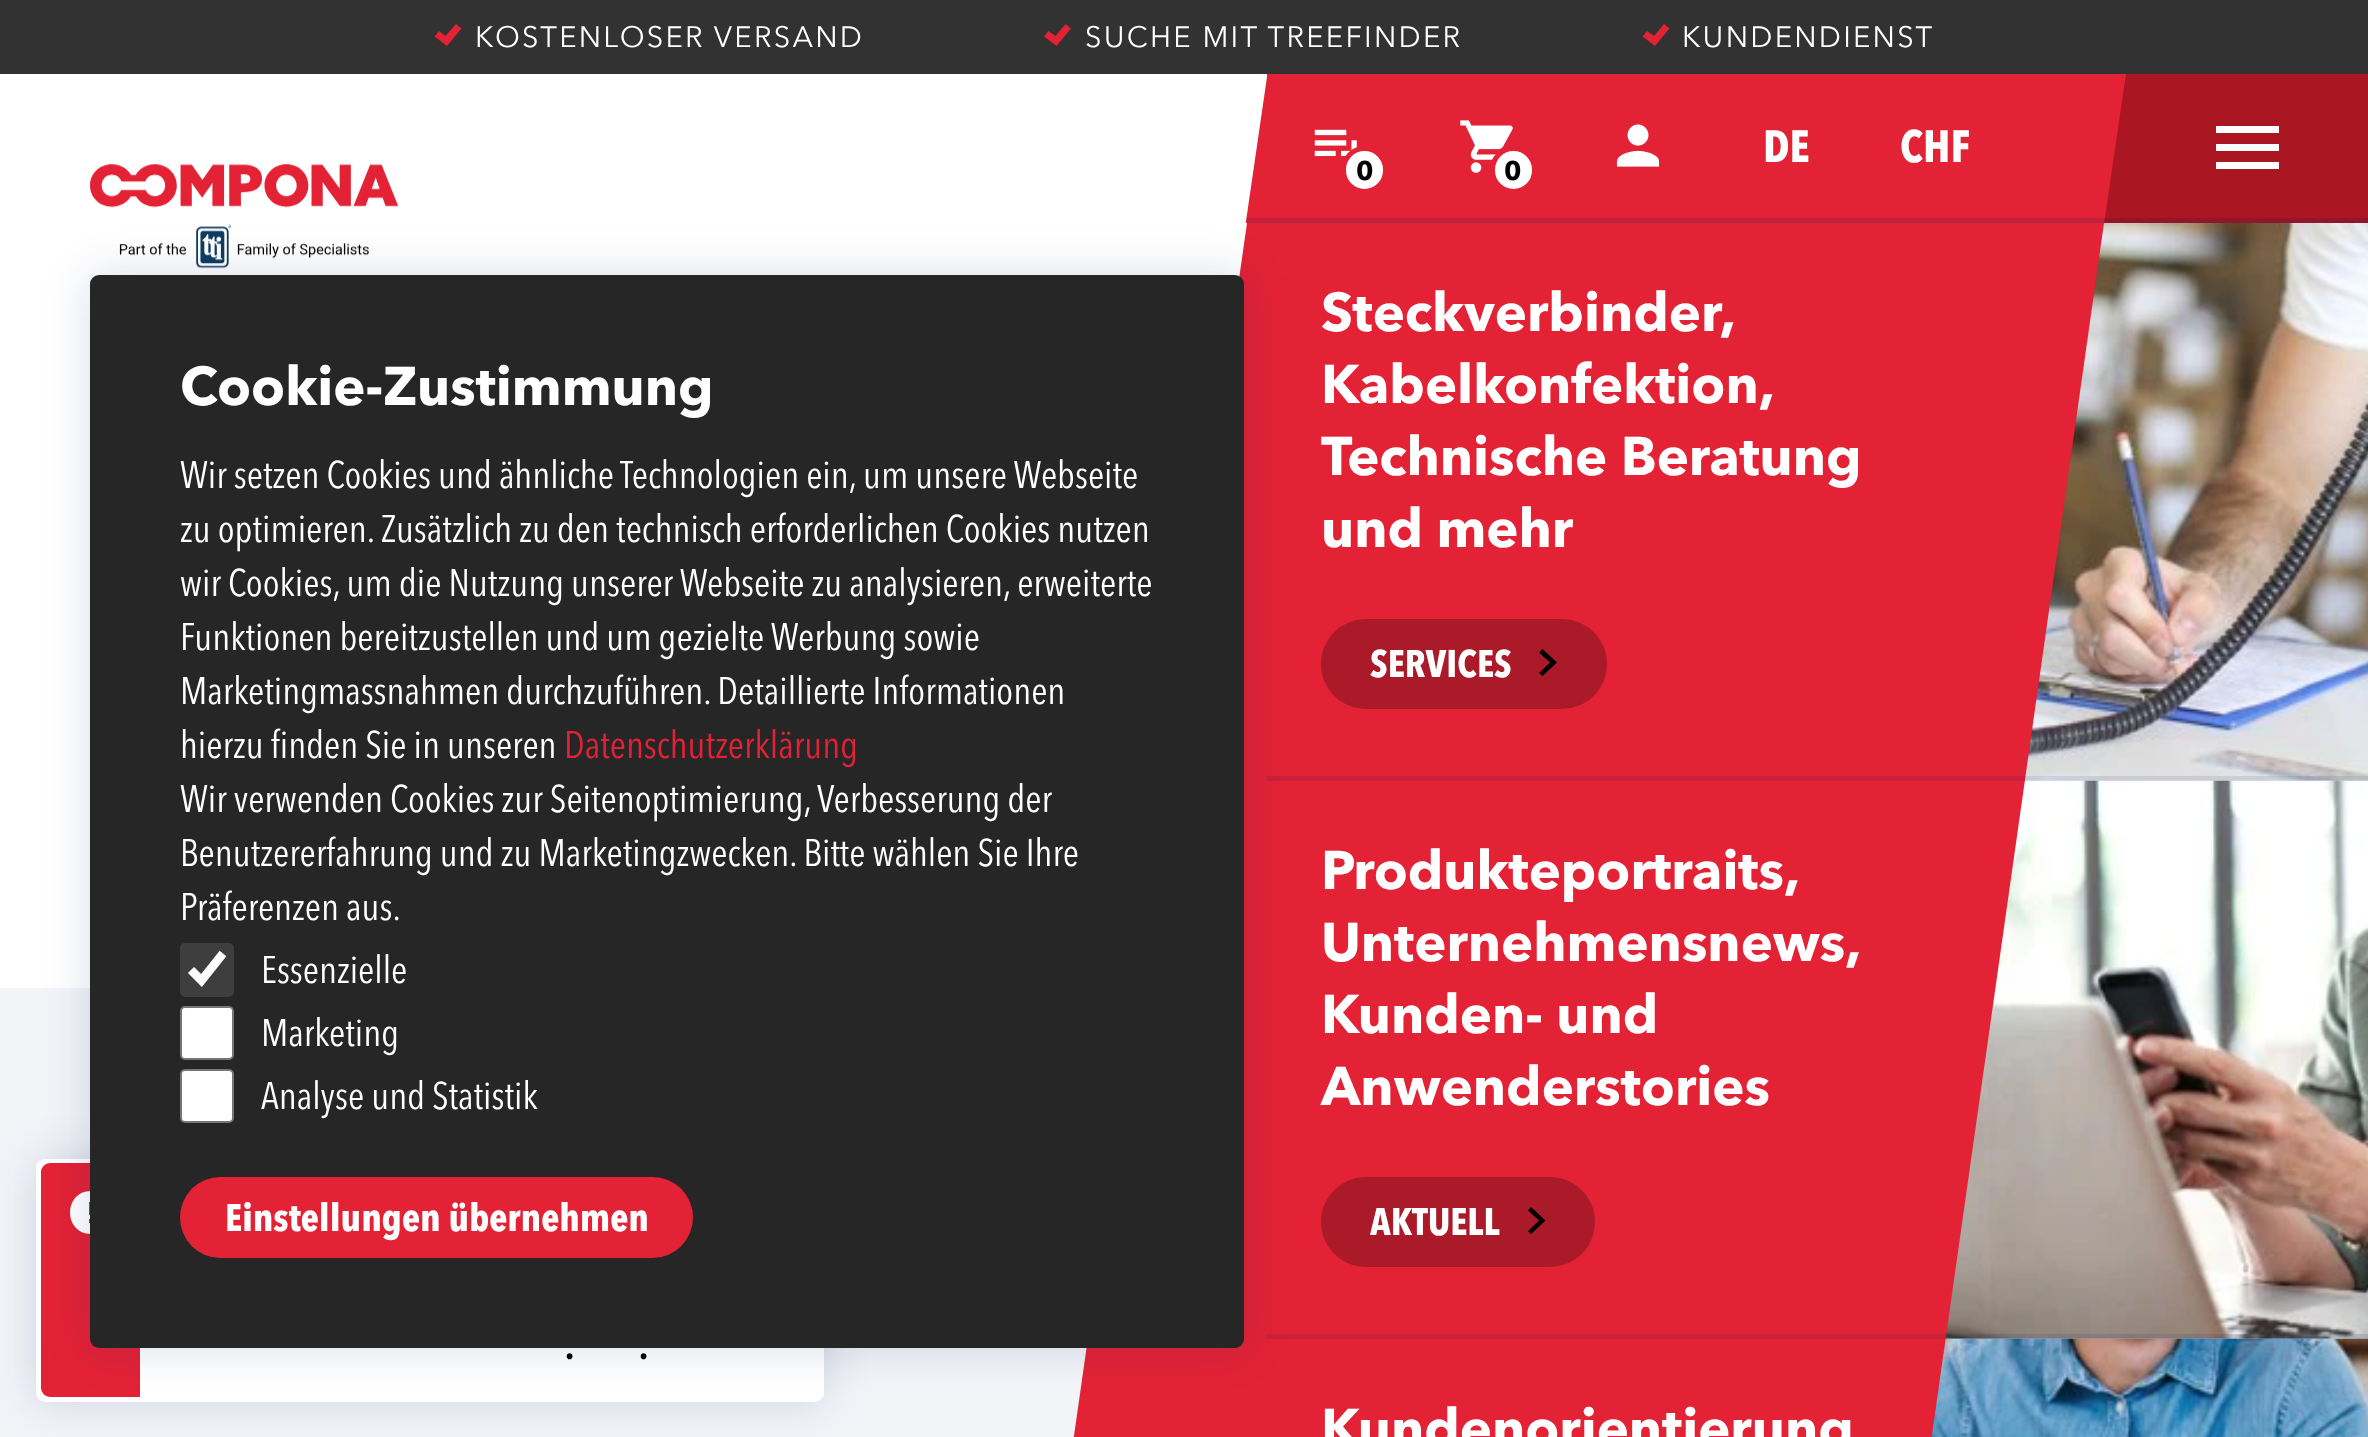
<!DOCTYPE html>
<meta charset="utf-8">
<style>body { margin: 0 } canvas { display: block }</style>
<canvas id="canvas" width="2368" height="1437"></canvas>
<script type="module">
  const canvas = document.getElementById("canvas");
  const g = canvas.getContext("2d");
  g.miterLimit = 4;
  g.fontKerning = "normal";
  function drawText(s, x, y, [font, color]) {
    g.font = font;
    g.fillStyle = color;
    g.fillText(s, x, y);
  }
  function fillBox(x, y, w, h, color) {
    g.fillStyle = color;
    g.fillRect(x, y, w, h);
  }
  function fillRounded(x, y, w, h, r, color) {
    g.fillStyle = color;
    g.beginPath();
    g.roundRect(x, y, w, h, r);
    g.fill();
  }
  async function drawPicture(src, x, y, w, h) {
    const img = new Image();
    img.src = src;
    await img.decode();
    g.drawImage(img, x, y, w, h);
  }

  const s1 = ["29.25px 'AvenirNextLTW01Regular'", "#FFFFFF"];
  const s2 = ["bold 45px 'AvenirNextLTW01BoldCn'", "#FFFFFF"];
  const s3 = ["bold 27px Avenir Next", "#000000"];
  const s4 = ["bold 34px 'AvenirNextLTW01BoldCn'", "#000000"];
  const s5 = ["bold 54px Avenir Next", "#FFFFFF"];
  const s6 = ["bold 38.25px 'AvenirNextLTW01BoldCn'", "#FFFFFF"];
  const s7 = ["38.25px 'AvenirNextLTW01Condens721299'", "#FFFFFF"];
  const s8 = ["38.25px 'AvenirNextLTW01Condens721299'", "#E32236"];

  fillBox(0, 0, 2368, 1437, "#FFFFFF");
  fillBox(0, 0, 2368, 74, "#323232");
  g.fillStyle = "#E32236";
  g.beginPath();
  g.moveTo(439, 31);
  g.lineTo(445.5, 36);
  g.lineTo(456, 24);
  g.lineTo(461.5, 28.5);
  g.lineTo(447, 46);
  g.lineTo(434.5, 36.5);
  g.closePath();
  g.fill();
  g.letterSpacing = "2.25px";
  drawText("KOSTENLOSER VERSAND", 475, 47, s1);
  g.fillStyle = "#E32236";
  g.beginPath();
  g.moveTo(1048.5, 31);
  g.lineTo(1055.5, 36);
  g.lineTo(1065.5, 24);
  g.lineTo(1071, 28.5);
  g.lineTo(1056.5, 46);
  g.lineTo(1044, 36.5);
  g.closePath();
  g.fill();
  drawText("SUCHE MIT TREEFINDER", 1085, 47, s1);
  g.fillStyle = "#E32236";
  g.beginPath();
  g.moveTo(1647, 31);
  g.lineTo(1654, 36);
  g.lineTo(1664, 24);
  g.lineTo(1669.5, 28.5);
  g.lineTo(1655, 46);
  g.lineTo(1642.5, 36.5);
  g.closePath();
  g.fill();
  drawText("KUNDENDIENST", 1682, 47, s1);
  fillBox(1267, 74, 837, 144, "#E32236");
  g.save();
  g.beginPath();
  g.rect(1244, 74, 23, 149);
  g.clip();
  g.beginPath();
  g.moveTo(1267, 235);
  g.lineTo(1244, 235);
  g.lineTo(1267, 77);
  g.closePath();
  g.fill();
  g.restore();
  await drawPicture("pic1.png", 1616, 124, 44, 43);
  g.letterSpacing = "0px";
  drawText("DE", 1763, 162, s2);
  drawText("CHF", 1900, 162, s2);
  await drawPicture("pic2.png", 1314, 129, 43, 28);
  g.beginPath();
  g.roundRect(1343.5, 148.5, 42, 43, 21);
  g.fill();
  g.strokeStyle = "#E32236";
  g.lineWidth = 5;
  g.stroke();
  drawText("0", 1356, 180, s3);
  await drawPicture("pic3.png", 1460, 120, 53, 53);
  g.fillStyle = "#FFFFFF";
  g.beginPath();
  g.roundRect(1492.5, 148.5, 42, 43, 21);
  g.fill();
  g.stroke();
  drawText("0", 1504, 180, s3);
  fillBox(1247, 218, 857, 5, "#C1213C");
  fillBox(2126, 74, 242, 149, "#AB1623");
  fillBox(2104, 74, 22, 149, "#E32236");
  g.save();
  g.beginPath();
  g.rect(2104, 74, 22, 149);
  g.clip();
  g.fillStyle = "#AB1623";
  g.beginPath();
  g.moveTo(2126, 224);
  g.lineTo(2104, 224);
  g.lineTo(2126, 74);
  g.closePath();
  g.fill("evenodd");
  g.restore();
  fillBox(2216, 126, 63, 7, "#FFFFFF");
  fillBox(2216, 144, 63, 7, "#FFFFFF");
  fillBox(2216, 162, 63, 7, "#FFFFFF");
  fillBox(2104, 218, 264, 5, "rgba(0, 25, 95, 0.15)");
  fillBox(0, 988, 2368, 449, "#F3F4F8");
  g.fillStyle = "rgba(0, 25, 95, 0.15)";
  g.filter = "blur(22.5px)";
  g.beginPath();
  g.roundRect(36, 1159, 788, 243, 9);
  g.fill();
  g.filter = "none";
  g.fillStyle = "#FFFFFF";
  g.beginPath();
  g.roundRect(38.5, 1161.5, 783, 238, 6.5);
  g.fill();
  g.strokeStyle = "#FFFFFF";
  g.stroke();
  g.fillStyle = "#E32236";
  g.beginPath();
  g.roundRect(41, 1163, 99, 234, [9, 0, 0, 9]);
  g.fill();
  g.fillStyle = "#FFFFFF";
  g.beginPath();
  g.moveTo(91, 1191);
  g.bezierCurveTo(63, 1191, 63, 1234, 91, 1234);
  g.bezierCurveTo(119, 1234, 119, 1191, 91, 1191);
  g.closePath();
  g.moveTo(93, 1223);
  g.lineTo(89, 1223);
  g.lineTo(89, 1219);
  g.lineTo(93, 1219);
  g.closePath();
  g.moveTo(93, 1215);
  g.lineTo(89, 1215);
  g.lineTo(89, 1202);
  g.lineTo(93, 1202);
  g.closePath();
  g.fill();
  drawText(".", 565, 1359, s4);
  drawText(".", 639, 1359, s4);
  await drawPicture("pic4.png", 90, 164, 308, 105);
  await drawPicture("pic5.png", 2024, 223, 344, 558);
  await drawPicture("pic6.png", 1945, 780, 423, 559);
  await drawPicture("pic7.png", 1931, 1338, 437, 99);
  g.fillStyle = "#E32236";
  g.beginPath();
  g.moveTo(1247, 223);
  g.lineTo(1047, 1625);
  g.lineTo(1905, 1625);
  g.lineTo(2104, 223);
  g.closePath();
  g.fill("evenodd");
  drawText("Steckverbinder,", 1321, 331, s5);
  drawText("Kabelkonfektion,", 1321, 403, s5);
  drawText("Technische Beratung", 1321, 475, s5);
  drawText("und mehr", 1321, 547, s5);
  fillRounded(1321, 619, 286, 90, 45, "#AA1A29");
  drawText("SERVICES", 1370, 677, s6);
  g.fillStyle = "#000000";
  g.beginPath();
  g.moveTo(1550, 662.5);
  g.lineTo(1539, 673);
  g.lineTo(1542.5, 676);
  g.lineTo(1557, 662.5);
  g.lineTo(1542.5, 649);
  g.lineTo(1539, 652.5);
  g.closePath();
  g.fill();
  fillBox(1267, 776, 1101, 5, "rgba(0, 25, 95, 0.1)");
  drawText("Produkteportraits,", 1321, 889, s5);
  drawText("Unternehmensnews,", 1321, 961, s5);
  drawText("Kunden- und", 1321, 1033, s5);
  drawText("Anwenderstories", 1321, 1105, s5);
  fillRounded(1321, 1177, 274, 90, 45, "#AA1A29");
  drawText("AKTUELL", 1370, 1235, s6);
  g.fillStyle = "#000000";
  g.beginPath();
  g.moveTo(1539, 1220.5);
  g.lineTo(1528, 1231);
  g.lineTo(1531, 1234);
  g.lineTo(1545.5, 1220.5);
  g.lineTo(1531, 1207);
  g.lineTo(1528, 1210.5);
  g.closePath();
  g.fill();
  fillBox(1267, 1334, 1101, 5, "rgba(0, 25, 95, 0.1)");
  drawText("Kundenorientierung", 1321, 1447, s5);
  g.fillStyle = "rgba(0, 25, 95, 0.15)";
  g.filter = "blur(22.5px)";
  g.beginPath();
  g.roundRect(90, 275, 1154, 1073, 9);
  g.fill();
  g.filter = "none";
  fillRounded(90, 275, 1154, 1073, 9, "#262626");
  drawText("Cookie-Zustimmung", 180, 405, s5);
  drawText("Wir setzen Cookies und ähnliche Technologien ein, um unsere Webseite", 180, 488, s7);
  drawText("zu optimieren. Zusätzlich zu den technisch erforderlichen Cookies nutzen", 180, 542, s7);
  drawText("wir Cookies, um die Nutzung unserer Webseite zu analysieren, erweiterte", 180, 596, s7);
  drawText("Funktionen bereitzustellen und um gezielte Werbung sowie", 180, 650, s7);
  drawText("Marketingmassnahmen durchzuführen. Detaillierte Informationen", 180, 704, s7);
  drawText("hierzu finden Sie in unseren", 180, 758, s7);
  drawText("Datenschutzerklärung", 564, 758, s8);
  drawText("Wir verwenden Cookies zur Seitenoptimierung, Verbesserung der", 180, 812, s7);
  drawText("Benutzererfahrung und zu Marketingzwecken. Bitte wählen Sie Ihre", 180, 866, s7);
  drawText("Präferenzen aus.", 180, 920, s7);
  fillRounded(180, 943, 54, 54, 5, "#3E3E3E");
  g.beginPath();
  g.moveTo(191, 970);
  g.lineTo(201.5, 980.5);
  g.lineTo(223, 953.5);
  g.lineWidth = 8.6;
  g.stroke();
  drawText("Essenzielle", 261, 983, s7);
  g.beginPath();
  g.roundRect(181, 1007, 52, 52, 4);
  g.fill();
  g.strokeStyle = "#767676";
  g.lineWidth = 2;
  g.stroke();
  drawText("Marketing", 261, 1046, s7);
  g.beginPath();
  g.roundRect(181, 1070, 52, 52, 4);
  g.fill();
  g.stroke();
  drawText("Analyse und Statistik", 261, 1109, s7);
  fillRounded(180, 1177, 513, 81, 40.5, "#E32236");
  drawText("Einstellungen übernehmen", 225, 1231, s6);
</script>
